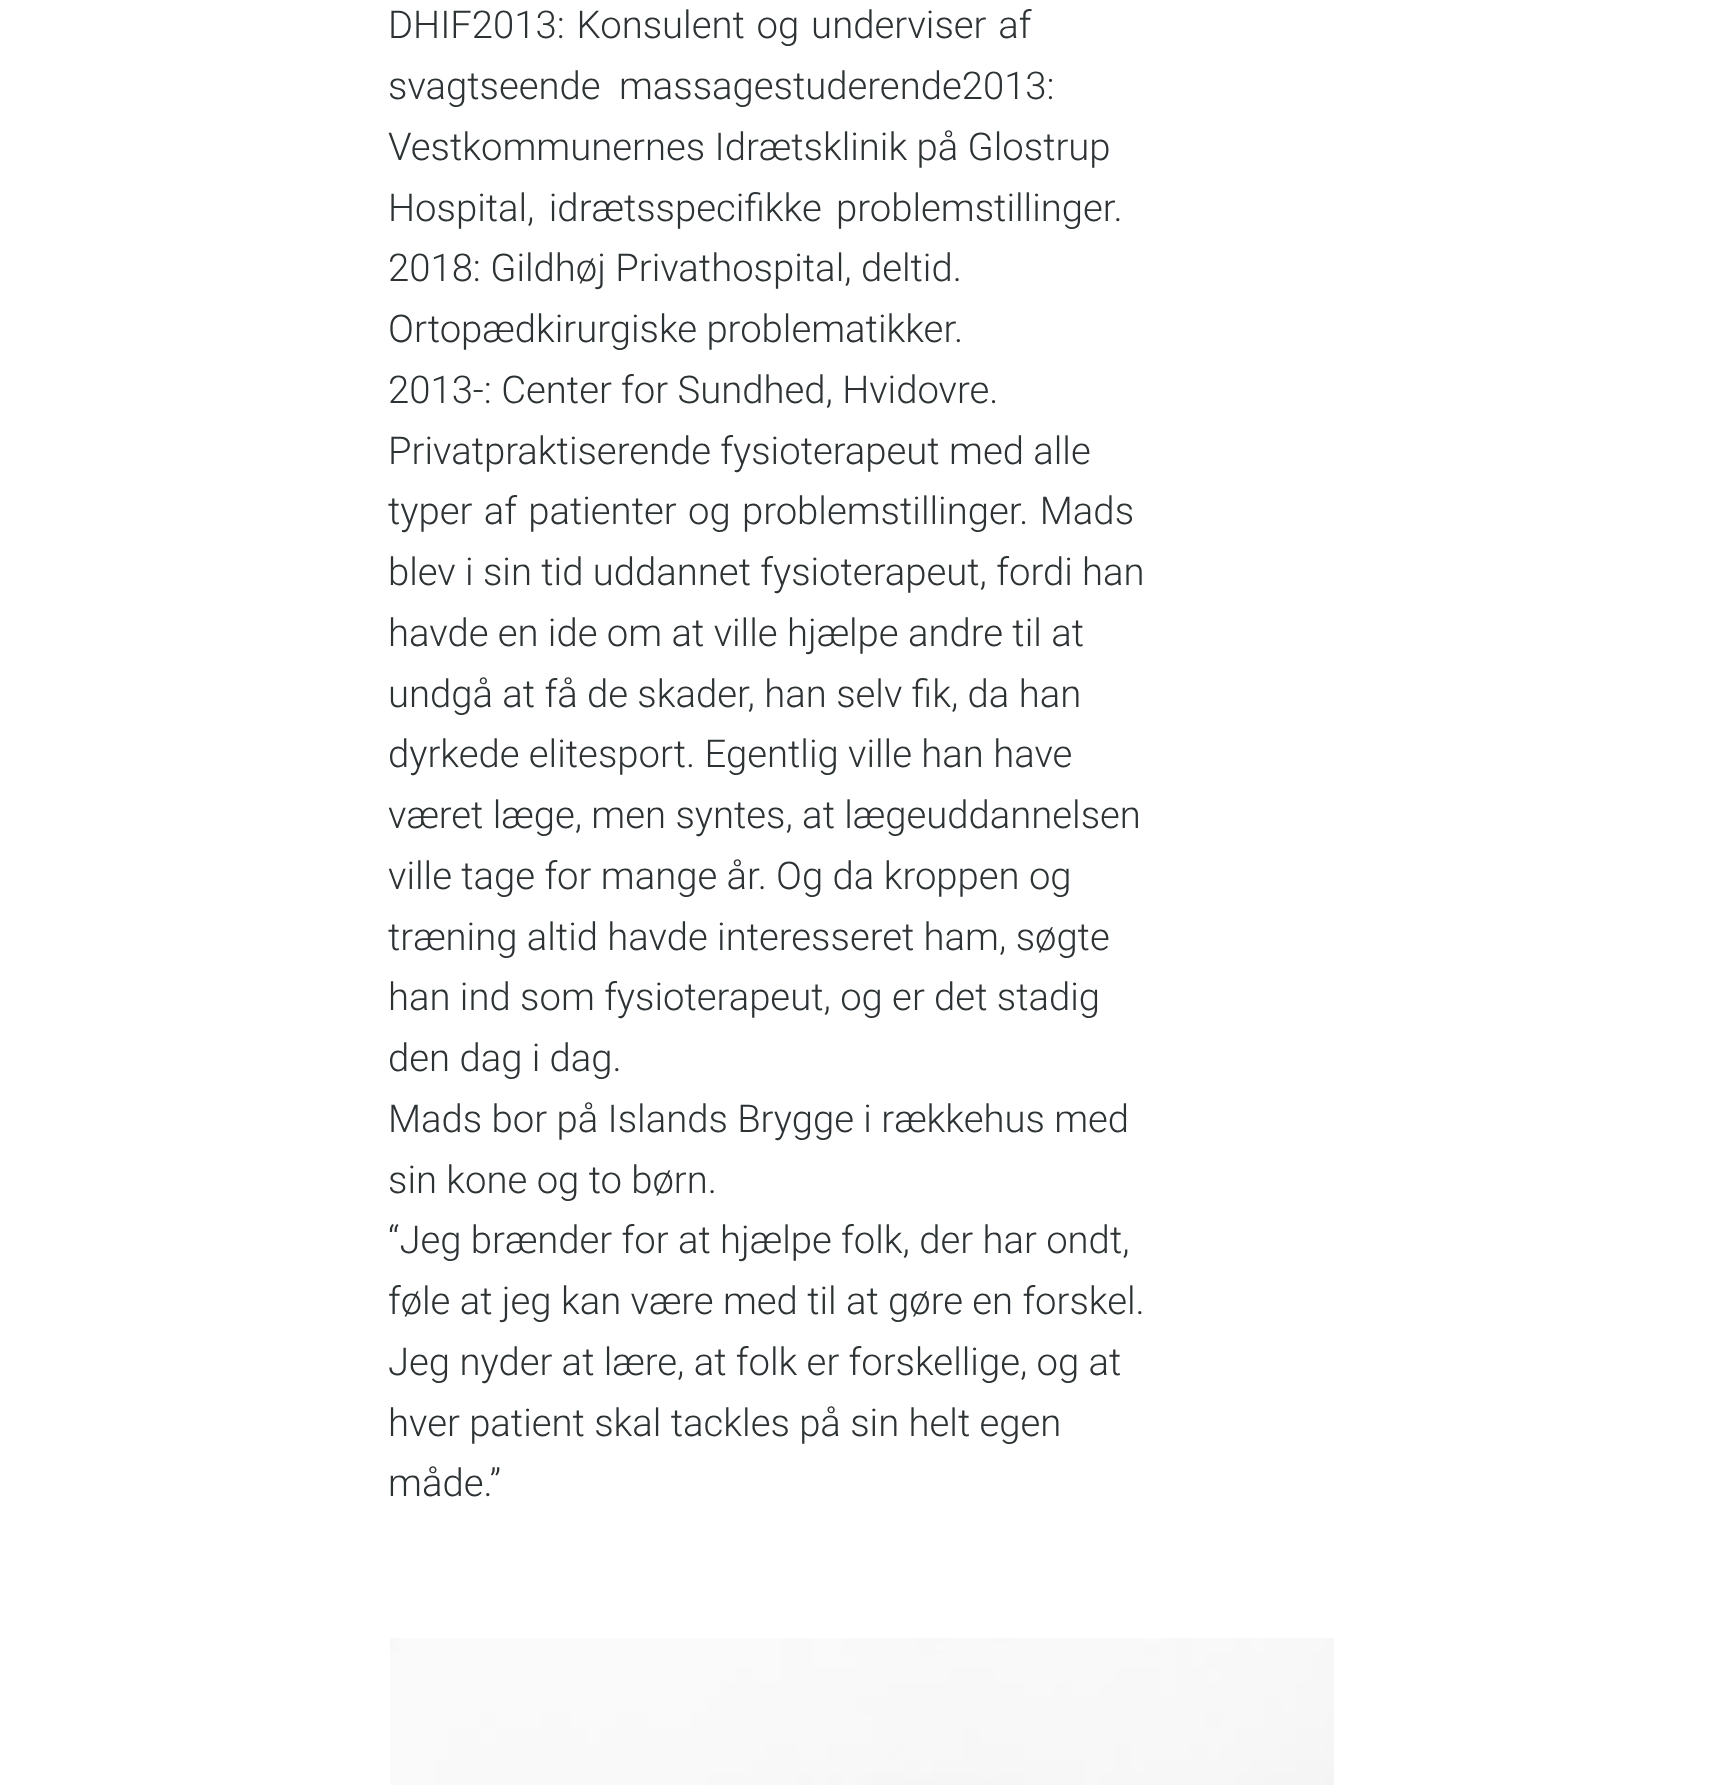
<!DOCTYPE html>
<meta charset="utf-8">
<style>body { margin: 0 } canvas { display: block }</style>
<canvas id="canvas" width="1720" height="1785"></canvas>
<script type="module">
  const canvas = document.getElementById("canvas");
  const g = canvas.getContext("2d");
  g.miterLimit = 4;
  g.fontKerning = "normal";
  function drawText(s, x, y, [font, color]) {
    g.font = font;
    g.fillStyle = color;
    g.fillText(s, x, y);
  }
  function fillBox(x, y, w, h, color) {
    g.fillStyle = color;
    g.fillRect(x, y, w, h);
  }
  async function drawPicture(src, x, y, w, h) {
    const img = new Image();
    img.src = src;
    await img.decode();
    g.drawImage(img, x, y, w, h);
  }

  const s1 = ["300 38.25px Roboto", "#2D3234"];

  fillBox(0, 0, 1720, 1785, "#FFFFFF");
  g.wordSpacing = "2.5px";
  drawText("DHIF2013: Konsulent og underviser af", 388, 38, s1);
  g.wordSpacing = "9px";
  drawText("svagtseende massagestuderende2013:", 388, 99, s1);
  g.wordSpacing = "0px";
  drawText("Vestkommunernes Idrætsklinik på Glostrup", 388, 160, s1);
  g.wordSpacing = "5px";
  drawText("Hospital, idrætsspecifikke problemstillinger.", 388, 221, s1);
  g.wordSpacing = "0px";
  drawText("2018: Gildhøj Privathospital, deltid.", 388, 281, s1);
  drawText("Ortopædkirurgiske problematikker.", 388, 342, s1);
  drawText("2013-: Center for Sundhed, Hvidovre.", 388, 403, s1);
  drawText("Privatpraktiserende fysioterapeut med alle", 388, 464, s1);
  g.wordSpacing = "2px";
  drawText("typer af patienter og problemstillinger. Mads", 388, 524, s1);
  g.wordSpacing = "0px";
  drawText("blev i sin tid uddannet fysioterapeut, fordi han", 388, 585, s1);
  drawText("havde en ide om at ville hjælpe andre til at", 388, 646, s1);
  drawText("undgå at få de skader, han selv fik, da han", 388, 707, s1);
  drawText("dyrkede elitesport. Egentlig ville han have", 388, 767, s1);
  drawText("været læge, men syntes, at lægeuddannelsen", 388, 828, s1);
  drawText("ville tage for mange år. Og da kroppen og", 388, 889, s1);
  drawText("træning altid havde interesseret ham, søgte", 388, 950, s1);
  drawText("han ind som fysioterapeut, og er det stadig", 388, 1010, s1);
  drawText("den dag i dag.", 388, 1071, s1);
  drawText("Mads bor på Islands Brygge i rækkehus med", 388, 1132, s1);
  drawText("sin kone og to børn.", 388, 1193, s1);
  drawText("“Jeg brænder for at hjælpe folk, der har ondt,", 388, 1253, s1);
  drawText("føle at jeg kan være med til at gøre en forskel.", 388, 1314, s1);
  drawText("Jeg nyder at lære, at folk er forskellige, og at", 388, 1375, s1);
  drawText("hver patient skal tackles på sin helt egen", 388, 1436, s1);
  drawText("måde.”", 388, 1496, s1);
  await drawPicture("pic1.png", 390, 1638, 944, 147);
</script>
